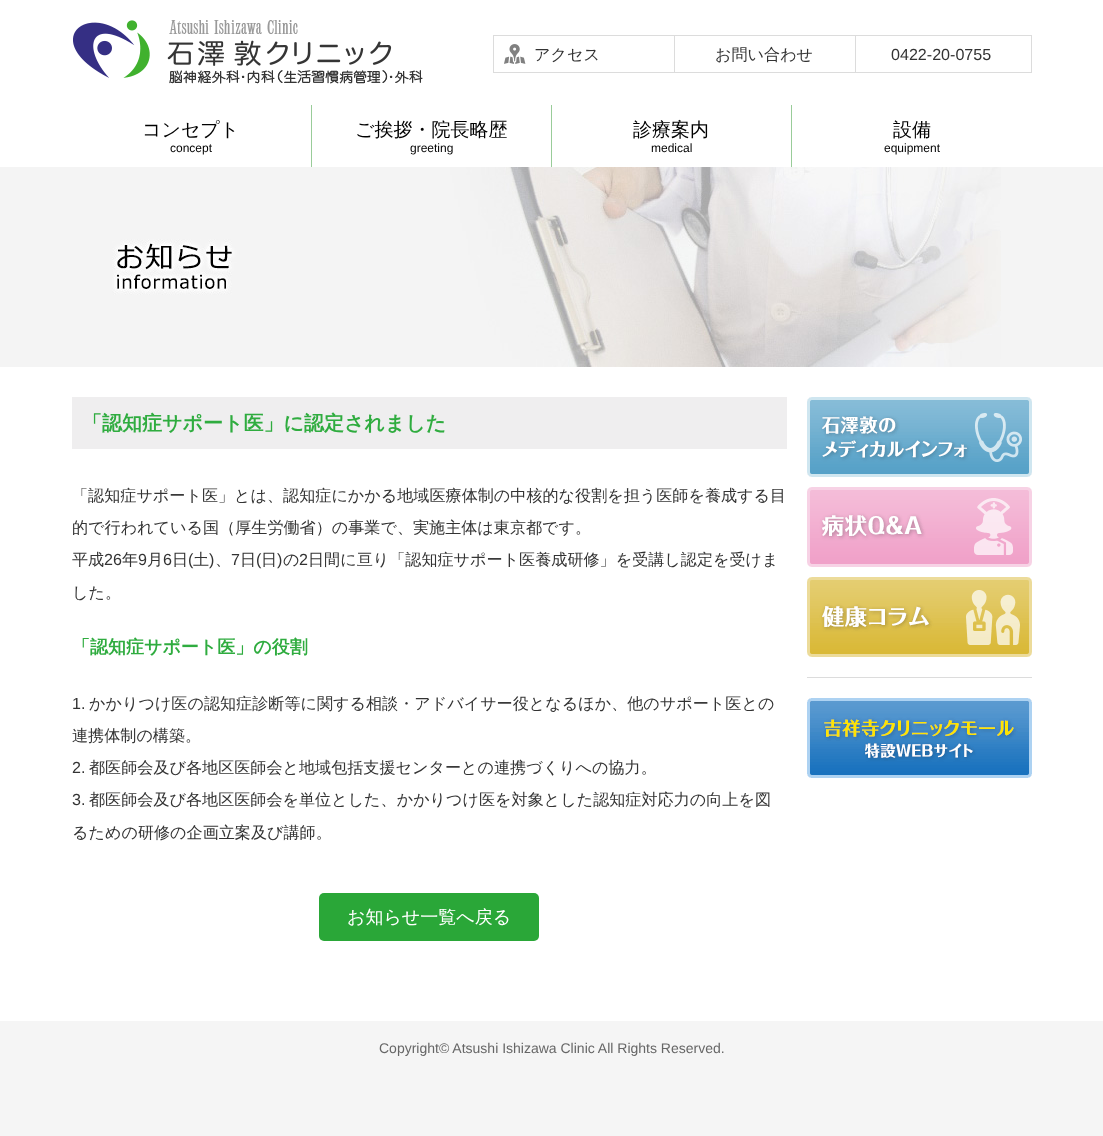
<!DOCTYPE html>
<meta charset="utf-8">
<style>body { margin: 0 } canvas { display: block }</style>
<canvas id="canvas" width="1103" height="1136"></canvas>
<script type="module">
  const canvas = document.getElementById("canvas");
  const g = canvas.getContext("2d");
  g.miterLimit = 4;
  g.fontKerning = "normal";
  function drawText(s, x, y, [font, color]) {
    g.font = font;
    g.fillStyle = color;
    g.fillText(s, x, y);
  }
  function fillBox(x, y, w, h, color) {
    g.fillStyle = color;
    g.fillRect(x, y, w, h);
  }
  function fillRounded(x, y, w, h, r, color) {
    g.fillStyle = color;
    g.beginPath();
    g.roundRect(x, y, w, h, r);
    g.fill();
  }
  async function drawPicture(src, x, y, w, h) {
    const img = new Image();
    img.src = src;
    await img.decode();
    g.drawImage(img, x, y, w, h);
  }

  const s1 = ["500 16.1px WenQuanYi Zen Hei", "#333333"];
  const s2 = ["16.1px Liberation Sans", "#333333"];
  const s3 = ["500 19px WenQuanYi Zen Hei", "#000000"];
  const s4 = ["12px Liberation Sans", "#000000"];
  const s5 = ["bold 20px WenQuanYi Zen Hei", "#2FAC3F"];
  const s6 = ["bold 18px WenQuanYi Zen Hei", "#2FAC3F"];
  const s7 = ["500 18px WenQuanYi Zen Hei", "#FFFFFF"];
  const s8 = ["14px Liberation Sans", "#666666"];

  fillBox(0, 0, 1103, 1136, "#FFFFFF");
  await drawPicture("pic1.png", 73, 20, 350, 64);
  g.strokeStyle = "#DCDCDC";
  g.strokeRect(493.5, 35.5, 538, 37);
  await drawPicture("pic2.png", 504, 44, 22, 20);
  fillBox(674, 36, 1, 36, "#DCDCDC");
  drawText("アクセス", 534, 60, s1);
  fillBox(855, 36, 1, 36, "#DCDCDC");
  drawText("お問い合わせ", 715, 60, s1);
  drawText("0422-20-0755", 891, 60, s2);
  fillBox(311, 105, 1, 62, "#99CC99");
  drawText("コンセプト", 142, 136, s3);
  drawText("concept", 170, 152, s4);
  fillBox(551, 105, 1, 62, "#99CC99");
  drawText("ご挨拶・院長略歴", 355, 136, s3);
  drawText("greeting", 410, 152, s4);
  fillBox(791, 105, 1, 62, "#99CC99");
  drawText("診療案内", 633, 136, s3);
  drawText("medical", 651, 152, s4);
  drawText("設備", 893, 136, s3);
  drawText("equipment", 884, 152, s4);
  fillBox(0, 167, 1103, 200, "#F4F4F4");
  await drawPicture("pic3.png", 112, 167, 889, 200);
  fillBox(72, 397, 715, 52, "#EFEEEF");
  drawText("「認知症サポート医」に認定されました", 82, 430, s5);
  drawText("「認知症サポート医」とは、認知症にかかる地域医療体制の中核的な役割を担う医師を養成する目", 72, 501, s1);
  drawText("的で行われている国（厚生労働省）の事業で、実施主体は東京都です。", 72, 533, s1);
  drawText("平成", 72, 565, s1);
  drawText("26", 104, 565, s2);
  drawText("年", 122, 565, s1);
  drawText("9", 138, 565, s2);
  drawText("月", 147, 565, s1);
  drawText("6", 163, 565, s2);
  drawText("日", 172, 565, s1);
  drawText("(", 188, 565, s2);
  drawText("土", 193, 565, s1);
  drawText(")", 209, 565, s2);
  drawText("、", 215, 565, s1);
  drawText("7", 231, 565, s2);
  drawText("日", 240, 565, s1);
  drawText("(", 256, 565, s2);
  drawText("日", 261, 565, s1);
  drawText(")", 277, 565, s2);
  drawText("の", 283, 565, s1);
  drawText("2", 299, 565, s2);
  drawText("日間に亘り「認知症サポート医養成研修」を受講し認定を受けま", 308, 565, s1);
  drawText("した。", 72, 598, s1);
  drawText("「認知症サポート医」の役割", 72, 653, s6);
  drawText("1.", 72, 709, s2);
  drawText("かかりつけ医の認知症診断等に関する相談・アドバイサー役となるほか、他のサポート医との", 89, 709, s1);
  drawText("連携体制の構築。", 72, 741, s1);
  drawText("2.", 72, 773, s2);
  drawText("都医師会及び各地区医師会と地域包括支援センターとの連携づくりへの協力。", 89, 773, s1);
  drawText("3.", 72, 805, s2);
  drawText("都医師会及び各地区医師会を単位とした、かかりつけ医を対象とした認知症対応力の向上を図", 89, 805, s1);
  drawText("るための研修の企画立案及び講師。", 72, 838, s1);
  fillRounded(319, 893, 220, 48, 5, "#2AA738");
  drawText("お知らせ一覧へ戻る", 347, 923, s7);
  await drawPicture("pic4.png", 807, 397, 225, 80);
  await drawPicture("pic5.png", 807, 487, 225, 80);
  await drawPicture("pic6.png", 807, 577, 225, 80);
  fillBox(807, 677, 225, 1, "#DCDCDC");
  await drawPicture("pic7.png", 807, 698, 225, 80);
  fillBox(0, 1021, 1103, 115, "#F5F5F5");
  drawText("Copyright© Atsushi Ishizawa Clinic All Rights Reserved.", 379, 1053, s8);
</script>
